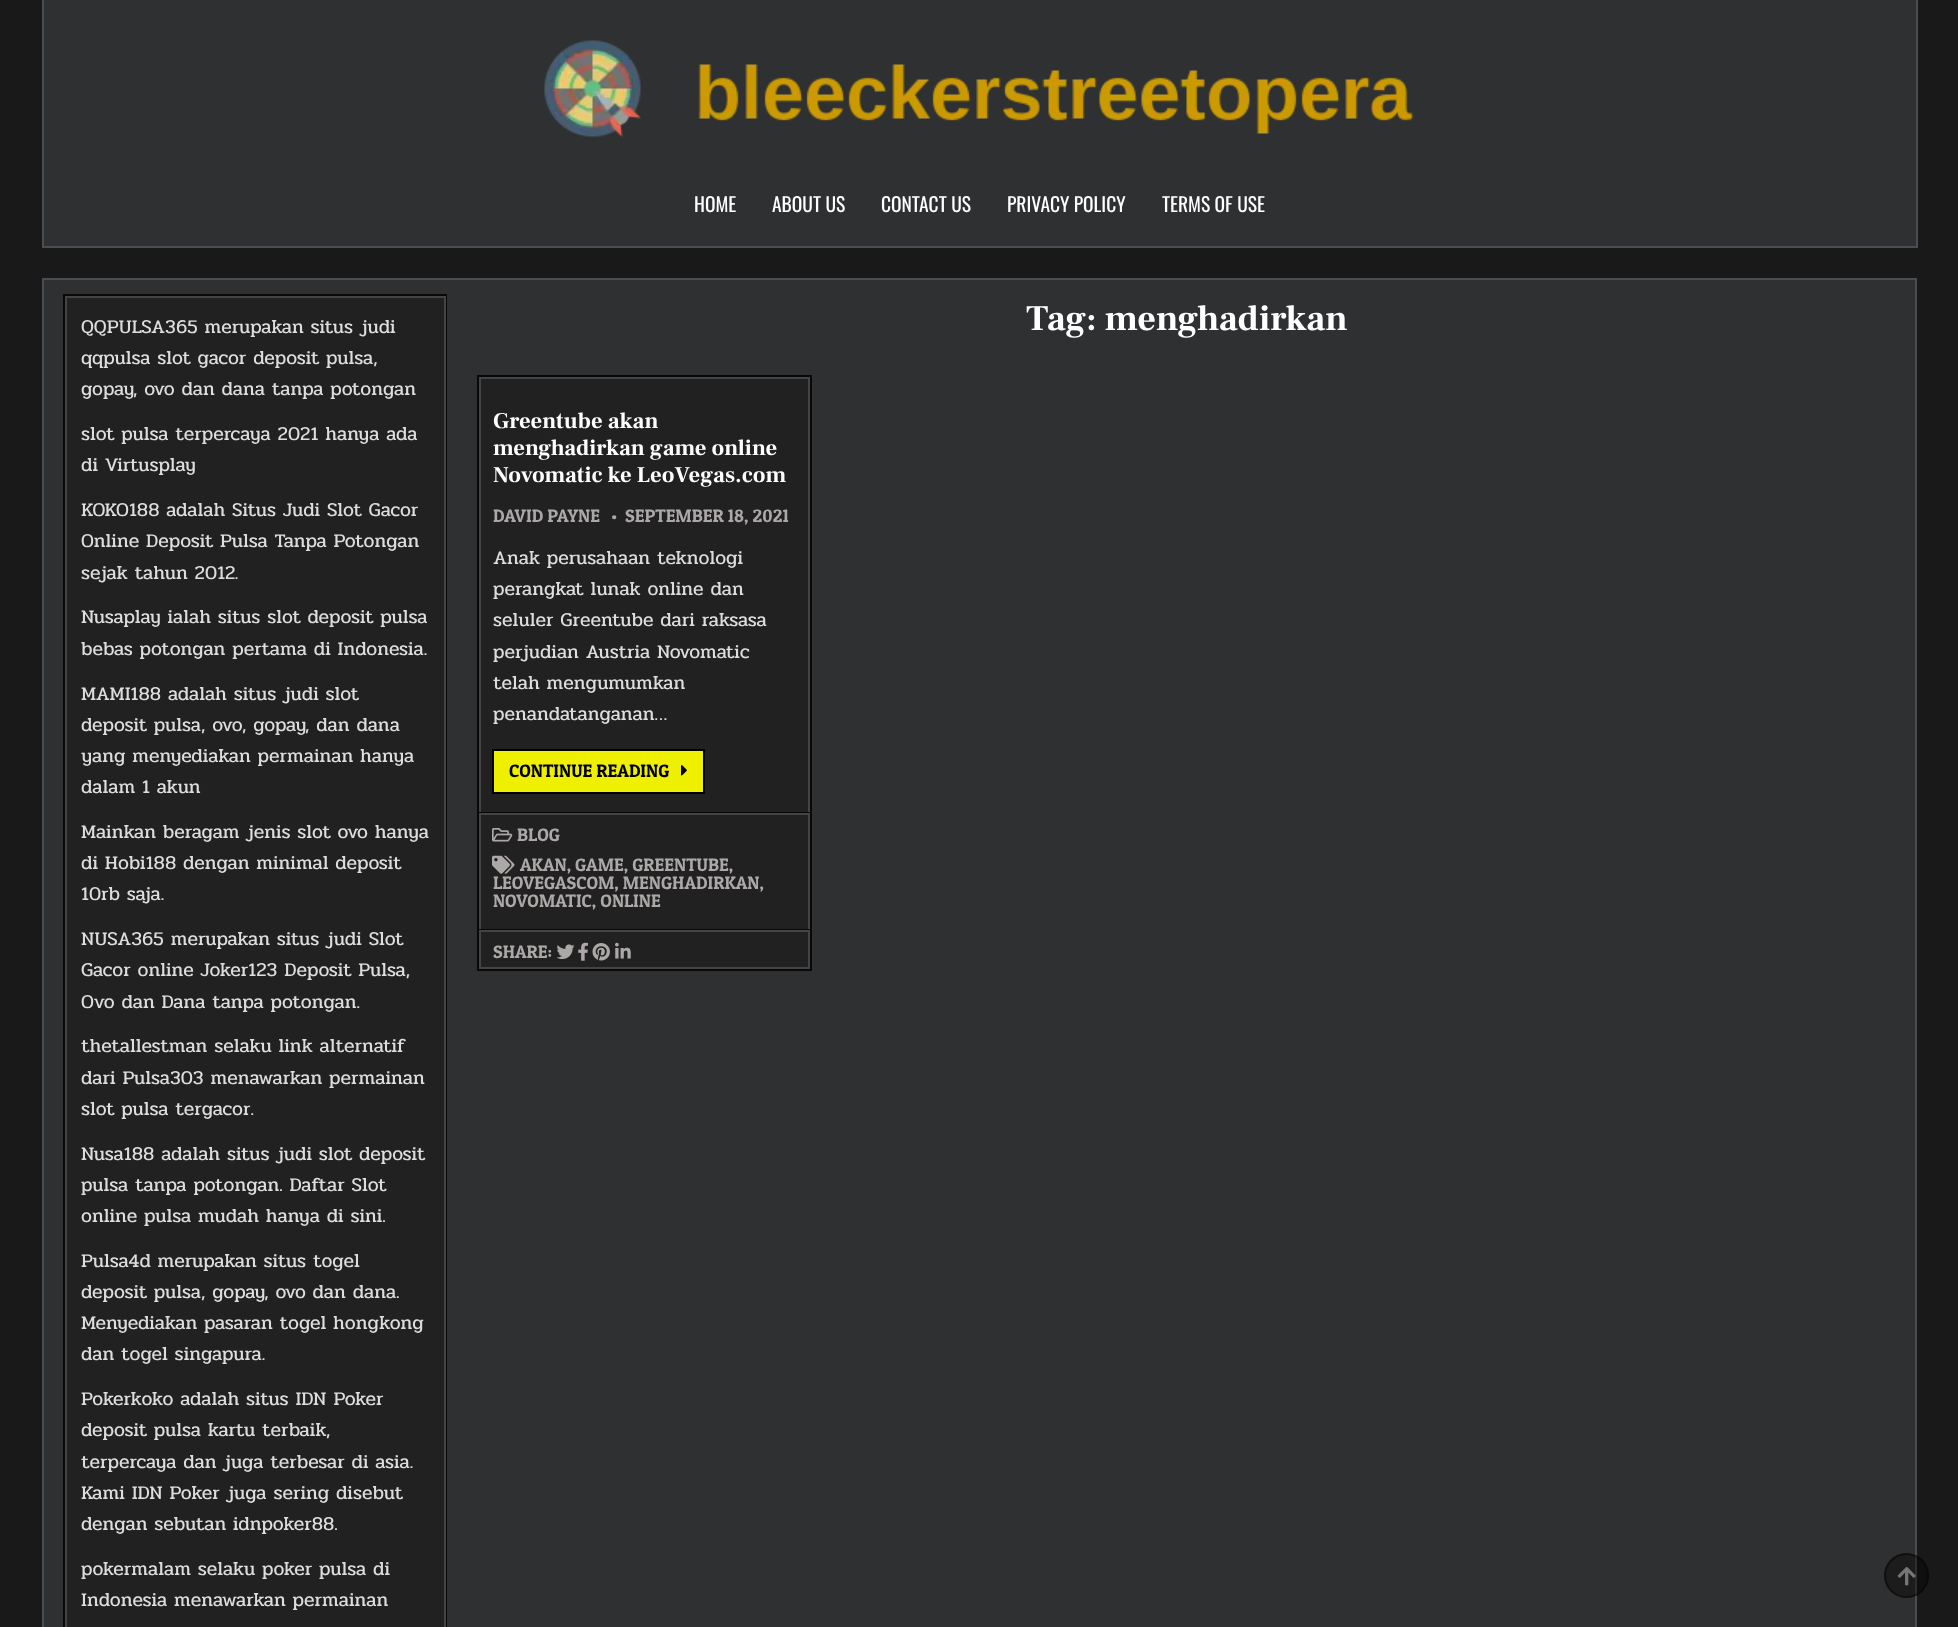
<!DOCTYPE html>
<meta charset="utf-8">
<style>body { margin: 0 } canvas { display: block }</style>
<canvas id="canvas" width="1958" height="1627"></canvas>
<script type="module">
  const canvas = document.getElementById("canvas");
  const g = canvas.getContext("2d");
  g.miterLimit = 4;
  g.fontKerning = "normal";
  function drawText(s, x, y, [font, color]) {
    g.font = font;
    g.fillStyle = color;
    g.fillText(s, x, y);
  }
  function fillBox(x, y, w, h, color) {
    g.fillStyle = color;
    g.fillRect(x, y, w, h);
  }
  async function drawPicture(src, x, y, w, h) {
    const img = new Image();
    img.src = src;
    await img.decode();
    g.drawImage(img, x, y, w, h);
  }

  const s1 = ["19.5px Oswald", "#FFFFFF"];
  const s2 = ["19.5px Pridi", "#DDDDDD"];
  const s3 = ["bold 36px Frank Ruhl Libre", "#FFFFFF"];
  const s4 = ["bold 22.5px Frank Ruhl Libre", "#FFFFFF"];
  const s5 = ["18px Patua One", "#ADA8A8"];
  const s6 = ["18px Patua One", "#000000"];

  fillBox(0, 0, 1958, 1627, "#191919");
  fillBox(44, 0, 1872, 246, "#2F3031");
  fillBox(1916, 0, 2, 248, "#4A4E53");
  fillBox(42, 246, 1875, 2, "#4A4E53");
  fillBox(42, 0, 2, 248, "#4A4E53");
  await drawPicture("pic1.png", 544, 40, 870, 97);
  drawText("HOME", 694, 212, s1);
  drawText("ABOUT US", 772, 212, s1);
  drawText("CONTACT US", 881, 212, s1);
  drawText("PRIVACY POLICY", 1007, 212, s1);
  drawText("TERMS OF USE", 1162, 212, s1);
  g.fillStyle = "#2F3031";
  g.beginPath();
  g.rect(43, 279, 1873, 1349);
  g.fill();
  g.strokeStyle = "#4A4E53";
  g.lineWidth = 2;
  g.stroke();
  fillBox(67, 298, 377, 1329, "#212121");
  g.strokeStyle = "#090909";
  g.strokeRect(64, 295, 382, 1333);
  g.strokeStyle = "#444444";
  g.strokeRect(66, 297, 379, 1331);
  drawText("QQPULSA365 merupakan situs judi", 81, 333, s2);
  drawText("qqpulsa slot gacor deposit pulsa,", 81, 364, s2);
  drawText("gopay, ovo dan dana tanpa potongan", 81, 395, s2);
  drawText("slot pulsa terpercaya 2021 hanya ada", 81, 440, s2);
  drawText("di Virtusplay", 81, 471, s2);
  drawText("KOKO188 adalah Situs Judi Slot Gacor", 81, 516, s2);
  drawText("Online Deposit Pulsa Tanpa Potongan", 81, 547, s2);
  drawText("sejak tahun 2012.", 81, 579, s2);
  drawText("Nusaplay ialah situs slot deposit pulsa", 81, 623, s2);
  drawText("bebas potongan pertama di Indonesia.", 81, 655, s2);
  drawText("MAMI188 adalah situs judi slot", 81, 700, s2);
  drawText("deposit pulsa, ovo, gopay, dan dana", 81, 731, s2);
  drawText("yang menyediakan permainan hanya", 81, 762, s2);
  drawText("dalam 1 akun", 81, 793, s2);
  drawText("Mainkan beragam jenis slot ovo hanya", 81, 838, s2);
  drawText("di Hobi188 dengan minimal deposit", 81, 869, s2);
  drawText("10rb saja.", 81, 900, s2);
  drawText("NUSA365 merupakan situs judi Slot", 81, 945, s2);
  drawText("Gacor online Joker123 Deposit Pulsa,", 81, 976, s2);
  drawText("Ovo dan Dana tanpa potongan.", 81, 1008, s2);
  drawText("thetallestman selaku link alternatif", 81, 1052, s2);
  drawText("dari Pulsa303 menawarkan permainan", 81, 1084, s2);
  drawText("slot pulsa tergacor.", 81, 1115, s2);
  drawText("Nusa188 adalah situs judi slot deposit", 81, 1160, s2);
  drawText("pulsa tanpa potongan. Daftar Slot", 81, 1191, s2);
  drawText("online pulsa mudah hanya di sini.", 81, 1222, s2);
  drawText("Pulsa4d merupakan situs togel", 81, 1267, s2);
  drawText("deposit pulsa, gopay, ovo dan dana.", 81, 1298, s2);
  drawText("Menyediakan pasaran togel hongkong", 81, 1329, s2);
  drawText("dan togel singapura.", 81, 1360, s2);
  drawText("Pokerkoko adalah situs IDN Poker", 81, 1405, s2);
  drawText("deposit pulsa kartu terbaik,", 81, 1436, s2);
  drawText("terpercaya dan juga terbesar di asia.", 81, 1468, s2);
  drawText("Kami IDN Poker juga sering disebut", 81, 1499, s2);
  drawText("dengan sebutan idnpoker88.", 81, 1530, s2);
  drawText("pokermalam selaku poker pulsa di", 81, 1575, s2);
  drawText("Indonesia menawarkan permainan", 81, 1606, s2);
  drawText("Tag: menghadirkan", 1026, 330, s3);
  fillBox(481, 379, 327, 588, "#212121");
  g.strokeStyle = "#090909";
  g.strokeRect(478, 376, 333, 594);
  g.strokeStyle = "#444444";
  g.strokeRect(480, 378, 329, 590);
  drawText("Greentube akan", 493, 428, s4);
  drawText("menghadirkan game online", 493, 455, s4);
  drawText("Novomatic ke LeoVegas.com", 493, 482, s4);
  drawText("DAVID PAYNE", 493, 522, s5);
  drawText("•", 611, 522, s5);
  drawText("SEPTEMBER 18, 2021", 625, 522, s5);
  drawText("Anak perusahaan teknologi", 493, 564, s2);
  drawText("perangkat lunak online dan", 493, 595, s2);
  drawText("seluler Greentube dari raksasa", 493, 626, s2);
  drawText("perjudian Austria Novomatic", 493, 658, s2);
  drawText("telah mengumumkan", 493, 689, s2);
  drawText("penandatanganan…", 493, 720, s2);
  g.fillStyle = "#EFEF00";
  g.beginPath();
  g.rect(493, 750, 211, 43);
  g.fill();
  g.strokeStyle = "#000000";
  g.stroke();
  drawText("CONTINUE READING", 509, 777, s6);
  await drawPicture("pic2.png", 681, 765, 6, 11);
  fillBox(479, 812, 331, 1, "#090909");
  fillBox(479, 813, 331, 2, "#444444");
  await drawPicture("pic3.png", 492, 828, 21, 14);
  drawText("BLOG", 517, 841, s5);
  await drawPicture("pic4.png", 492, 855, 23, 19);
  drawText("AKAN, GAME, GREENTUBE,", 520, 871, s5);
  drawText("LEOVEGASCOM, MENGHADIRKAN,", 493, 889, s5);
  drawText("NOVOMATIC, ONLINE", 493, 907, s5);
  fillBox(479, 929, 331, 1, "#090909");
  fillBox(479, 930, 331, 2, "#444444");
  drawText("SHARE:", 493, 958, s5);
  await drawPicture("pic5.png", 556, 944, 19, 16);
  await drawPicture("pic6.png", 578, 942, 10, 19);
  await drawPicture("pic7.png", 592, 943, 18, 18);
  await drawPicture("pic8.png", 615, 942, 16, 17);
  g.fillStyle = "rgba(0, 0, 0, 0.4)";
  g.beginPath();
  g.arc(1906.5, 1575.5, 22.5, 0, Math.PI * 2);
  g.fill();
  g.beginPath();
  g.arc(1906.5, 1575.5, 21.5, 0, Math.PI * 2);
  g.strokeStyle = "rgba(0, 0, 0, 0.4)";
  g.stroke();
  await drawPicture("pic9.png", 1897, 1567, 19, 19);
</script>
